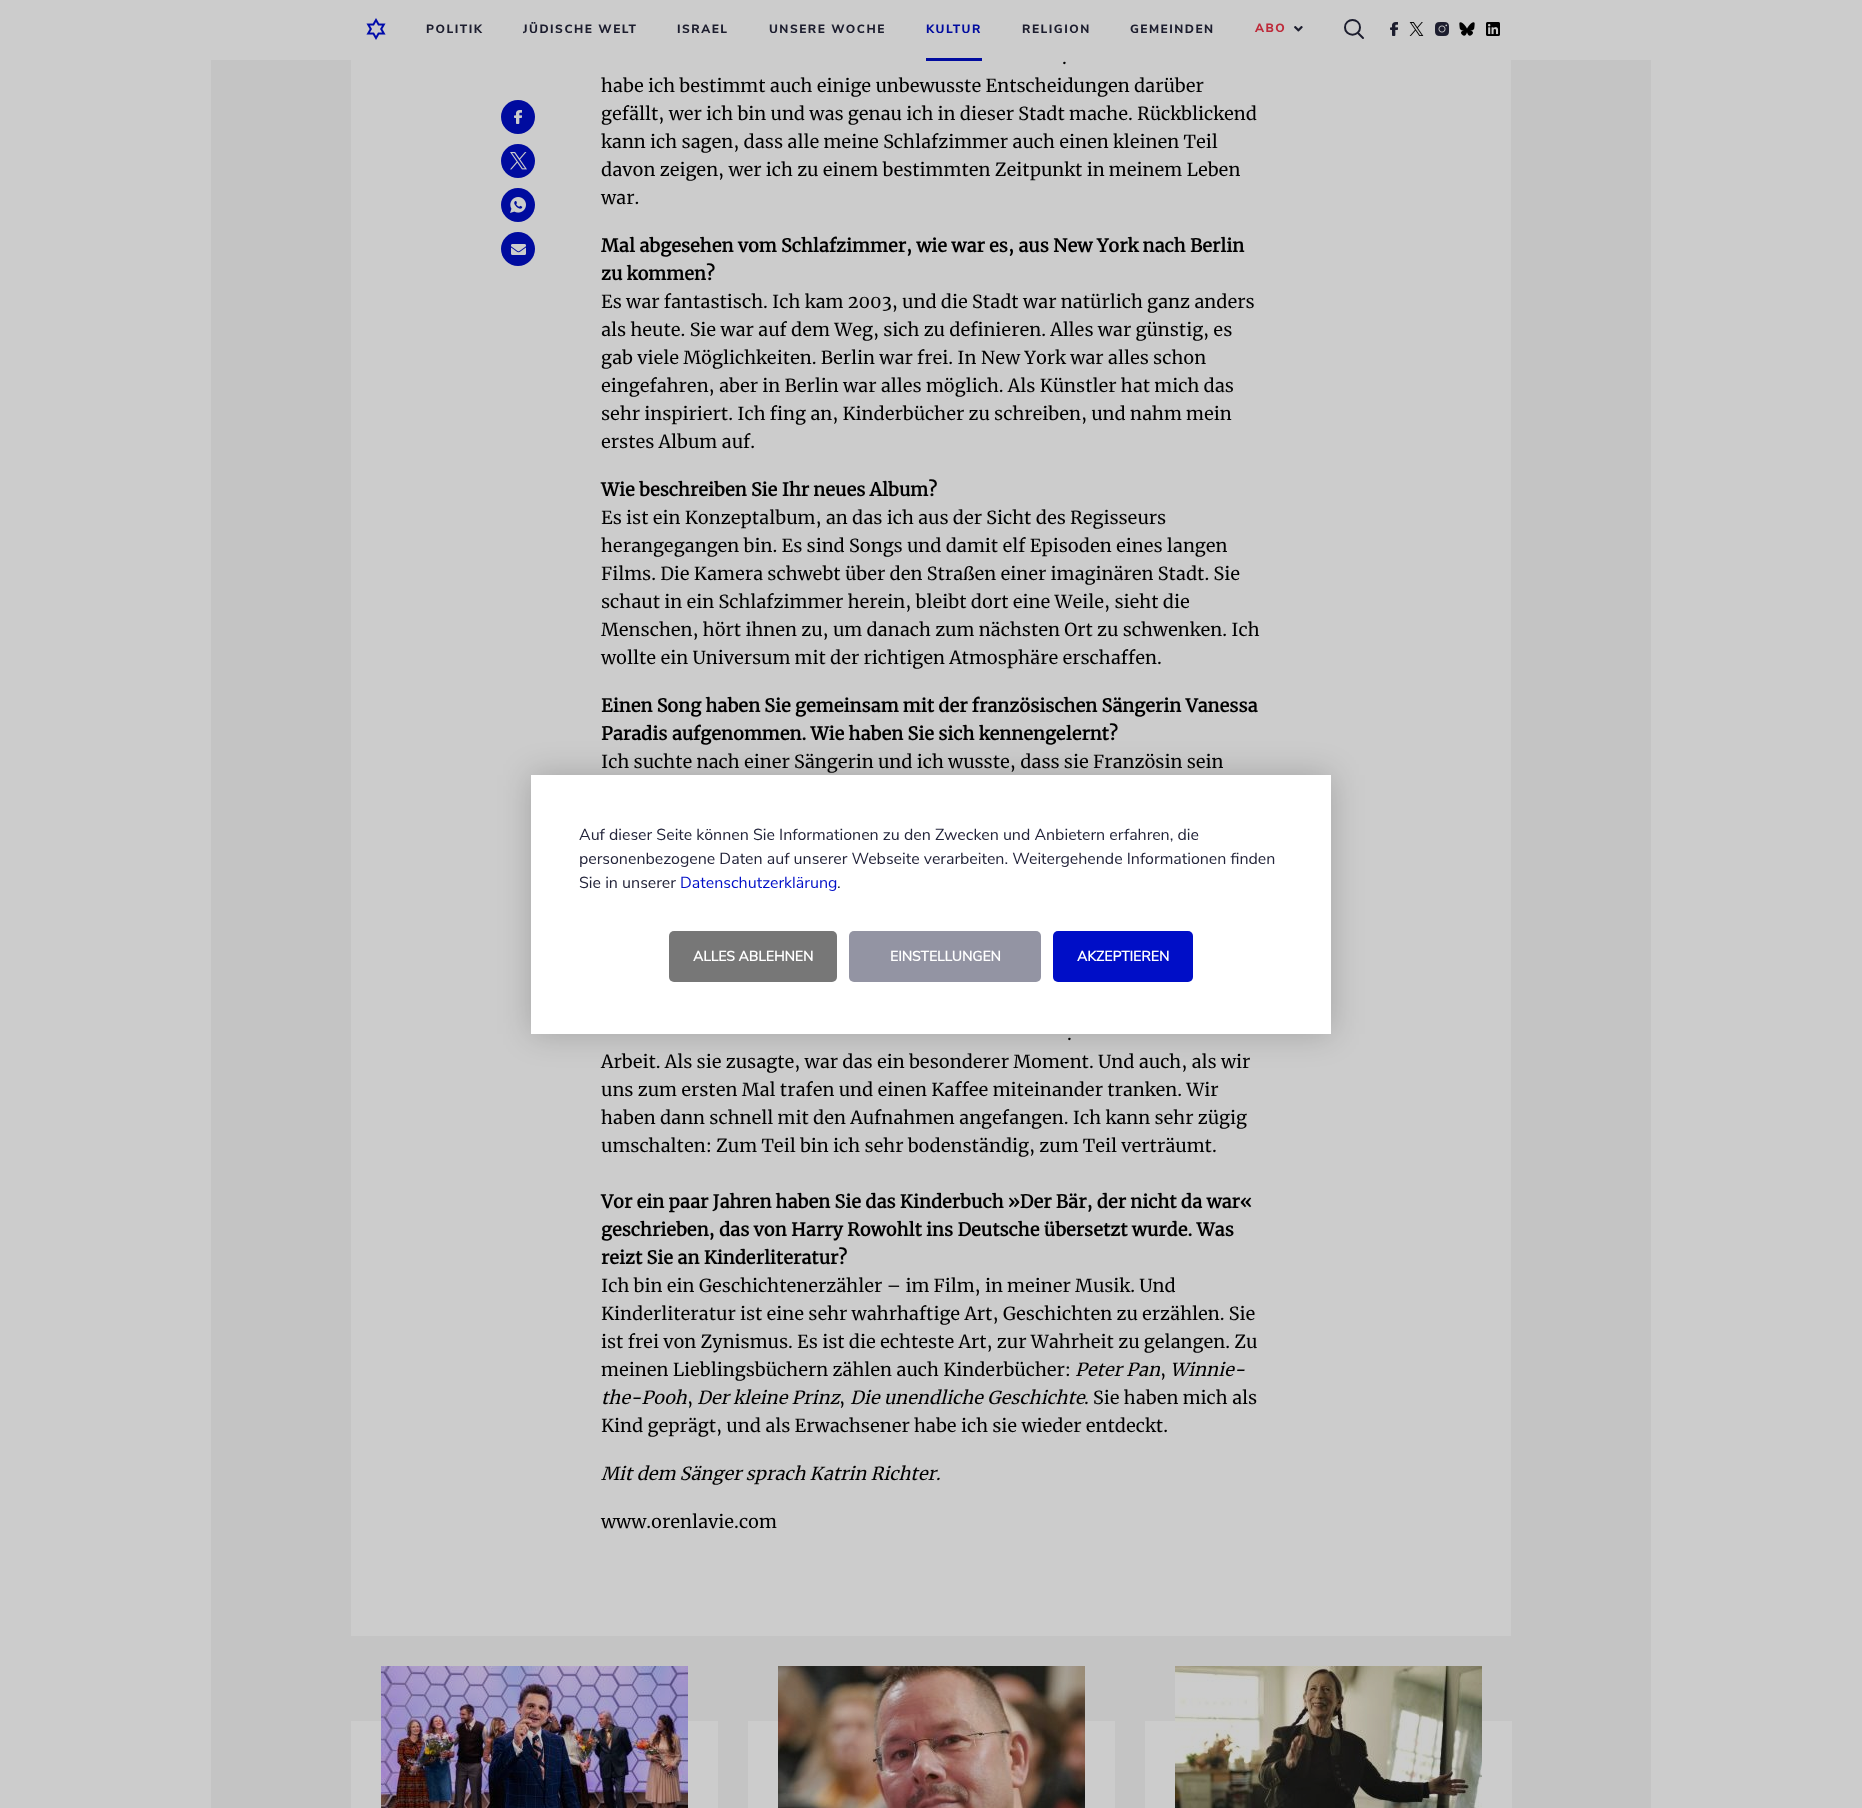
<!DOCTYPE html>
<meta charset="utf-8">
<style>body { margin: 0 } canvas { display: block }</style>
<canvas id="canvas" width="1862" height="1808"></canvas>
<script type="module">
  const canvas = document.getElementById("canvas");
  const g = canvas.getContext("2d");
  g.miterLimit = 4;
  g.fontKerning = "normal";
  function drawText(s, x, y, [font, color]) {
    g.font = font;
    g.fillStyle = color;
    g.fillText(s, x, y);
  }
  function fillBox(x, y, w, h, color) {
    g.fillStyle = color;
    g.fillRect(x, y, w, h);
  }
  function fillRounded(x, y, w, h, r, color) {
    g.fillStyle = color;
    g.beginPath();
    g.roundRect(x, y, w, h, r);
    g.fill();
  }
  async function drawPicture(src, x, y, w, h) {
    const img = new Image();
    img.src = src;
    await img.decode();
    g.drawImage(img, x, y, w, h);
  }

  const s1 = ["800 12px Nunito Sans", "#1C1D2E"];
  const s2 = ["800 12px Nunito Sans", "#000B9F"];
  const s3 = ["800 12px Nunito Sans", "#BE2A3A"];
  const s4 = ["18px Merriweather", "#000000"];
  const s5 = ["bold 18px Merriweather", "#000000"];
  const s6 = ["italic 18px Merriweather", "#000000"];
  const s7 = ["16px Nunito Sans", "#23243A"];
  const s8 = ["16px Nunito Sans", "#000EC7"];
  const s9 = ["bold 14px Nunito Sans", "#FFFFFF"];

  fillBox(0, 0, 1862, 1808, "#CCCCCC");
  await drawPicture("pic1.png", 366, 18, 20, 22);
  g.letterSpacing = "1.5px";
  drawText("POLITIK", 426, 33, s1);
  drawText("JÜDISCHE WELT", 523, 33, s1);
  drawText("ISRAEL", 677, 33, s1);
  drawText("UNSERE WOCHE", 769, 33, s1);
  drawText("KULTUR", 926, 33, s2);
  fillBox(211, 60, 1440, 1748, "#C4C4C4");
  fillBox(351, 60, 1160, 1576, "#CCCCCC");
  fillBox(926, 58, 56, 3, "#000B9F");
  drawText("RELIGION", 1022, 33, s1);
  drawText("GEMEINDEN", 1130, 33, s1);
  drawText("ABO", 1255, 32, s3);
  await drawPicture("pic2.png", 1294, 26, 9, 6);
  g.beginPath();
  g.moveTo(1360, 27.5);
  g.bezierCurveTo(1360, 17.5, 1345, 17.5, 1345, 27.5);
  g.bezierCurveTo(1345, 37, 1360, 37, 1360, 27.5);
  g.closePath();
  g.strokeStyle = "#1C1D2E";
  g.lineWidth = 2;
  g.stroke();
  g.beginPath();
  g.moveTo(1358.5, 33.5);
  g.lineTo(1363, 38);
  g.lineCap = "round";
  g.stroke();
  await drawPicture("pic3.png", 1390, 22, 8, 14);
  await drawPicture("pic4.png", 1409, 22, 15, 14);
  await drawPicture("pic5.png", 1435, 22, 14, 14);
  await drawPicture("pic6.png", 1459, 22, 16, 14);
  await drawPicture("pic7.png", 1486, 22, 14, 14);
  g.fillStyle = "#000B9F";
  g.beginPath();
  g.arc(518, 117, 17, 0, Math.PI * 2);
  g.fill();
  await drawPicture("pic8.png", 514, 110, 8, 14);
  g.beginPath();
  g.arc(518, 161, 17, 0, Math.PI * 2);
  g.fill();
  await drawPicture("pic9.png", 510, 152, 17, 18);
  g.beginPath();
  g.arc(518, 205, 17, 0, Math.PI * 2);
  g.fill();
  await drawPicture("pic10.png", 510, 197, 16, 16);
  g.beginPath();
  g.arc(518, 249, 17, 0, Math.PI * 2);
  g.fill();
  await drawPicture("pic11.png", 511, 244, 15, 11);
  g.letterSpacing = "0px";
  drawText(".", 1062, 64, s4);
  drawText("habe ich bestimmt auch einige unbewusste Entscheidungen darüber", 601, 92, s4);
  drawText("gefällt, wer ich bin und was genau ich in dieser Stadt mache. Rückblickend", 601, 120, s4);
  drawText("kann ich sagen, dass alle meine Schlafzimmer auch einen kleinen Teil", 601, 148, s4);
  drawText("davon zeigen, wer ich zu einem bestimmten Zeitpunkt in meinem Leben", 601, 176, s4);
  drawText("war.", 601, 204, s4);
  drawText("Mal abgesehen vom Schlafzimmer, wie war es, aus New York nach Berlin", 601, 252, s5);
  drawText("zu kommen?", 601, 280, s5);
  drawText("Es war fantastisch. Ich kam 2003, und die Stadt war natürlich ganz anders", 601, 308, s4);
  drawText("als heute. Sie war auf dem Weg, sich zu definieren. Alles war günstig, es", 601, 336, s4);
  drawText("gab viele Möglichkeiten. Berlin war frei. In New York war alles schon", 601, 364, s4);
  drawText("eingefahren, aber in Berlin war alles möglich. Als Künstler hat mich das", 601, 392, s4);
  drawText("sehr inspiriert. Ich fing an, Kinderbücher zu schreiben, und nahm mein", 601, 420, s4);
  drawText("erstes Album auf.", 601, 448, s4);
  drawText("Wie beschreiben Sie Ihr neues Album?", 601, 496, s5);
  drawText("Es ist ein Konzeptalbum, an das ich aus der Sicht des Regisseurs", 601, 524, s4);
  drawText("herangegangen bin. Es sind Songs und damit elf Episoden eines langen", 601, 552, s4);
  drawText("Films. Die Kamera schwebt über den Straßen einer imaginären Stadt. Sie", 601, 580, s4);
  drawText("schaut in ein Schlafzimmer herein, bleibt dort eine Weile, sieht die", 601, 608, s4);
  drawText("Menschen, hört ihnen zu, um danach zum nächsten Ort zu schwenken. Ich", 601, 636, s4);
  drawText("wollte ein Universum mit der richtigen Atmosphäre erschaffen.", 601, 664, s4);
  drawText("Einen Song haben Sie gemeinsam mit der französischen Sängerin Vanessa", 601, 712, s5);
  drawText("Paradis aufgenommen. Wie haben Sie sich kennengelernt?", 601, 740, s5);
  drawText("Ich suchte nach einer Sängerin und ich wusste, dass sie Französin sein", 601, 768, s4);
  drawText(".", 1067, 1040, s4);
  drawText("Arbeit. Als sie zusagte, war das ein besonderer Moment. Und auch, als wir", 601, 1068, s4);
  drawText("uns zum ersten Mal trafen und einen Kaffee miteinander tranken. Wir", 601, 1096, s4);
  drawText("haben dann schnell mit den Aufnahmen angefangen. Ich kann sehr zügig", 601, 1124, s4);
  drawText("umschalten: Zum Teil bin ich sehr bodenständig, zum Teil verträumt.", 601, 1152, s4);
  drawText("Vor ein paar Jahren haben Sie das Kinderbuch »Der Bär, der nicht da war«", 601, 1208, s5);
  drawText("geschrieben, das von Harry Rowohlt ins Deutsche übersetzt wurde. Was", 601, 1236, s5);
  drawText("reizt Sie an Kinderliteratur?", 601, 1264, s5);
  drawText("Ich bin ein Geschichtenerzähler – im Film, in meiner Musik. Und", 601, 1292, s4);
  drawText("Kinderliteratur ist eine sehr wahrhaftige Art, Geschichten zu erzählen. Sie", 601, 1320, s4);
  drawText("ist frei von Zynismus. Es ist die echteste Art, zur Wahrheit zu gelangen. Zu", 601, 1348, s4);
  drawText("meinen Lieblingsbüchern zählen auch Kinderbücher:", 601, 1376, s4);
  drawText("Peter Pan", 1075, 1376, s6);
  drawText(",", 1160, 1376, s4);
  drawText("Winnie-", 1170, 1376, s6);
  drawText("the-Pooh", 601, 1404, s6);
  drawText(",", 687, 1404, s4);
  drawText("Der kleine Prinz", 697, 1404, s6);
  drawText(",", 839, 1404, s4);
  drawText("Die unendliche Geschichte", 850, 1404, s6);
  drawText(". Sie haben mich als", 1084, 1404, s4);
  drawText("Kind geprägt, und als Erwachsener habe ich sie wieder entdeckt.", 601, 1432, s4);
  drawText("Mit dem Sänger sprach Katrin Richter.", 601, 1480, s6);
  drawText("www.orenlavie.com", 601, 1528, s4);
  fillBox(351, 1721, 367, 87, "#CCCCCC");
  await drawPicture("pic12.png", 381, 1666, 307, 142);
  fillBox(748, 1721, 367, 87, "#CCCCCC");
  await drawPicture("pic13.png", 778, 1666, 307, 142);
  fillBox(1145, 1721, 367, 87, "#CCCCCC");
  await drawPicture("pic14.png", 1175, 1666, 307, 142);
  g.fillStyle = "rgba(0, 0, 0, 0.2)";
  g.filter = "blur(16px)";
  g.beginPath();
  g.rect(531, 775, 800, 259);
  g.fill();
  g.filter = "none";
  fillBox(531, 775, 800, 259, "#FFFFFF");
  drawText("Auf dieser Seite können Sie Informationen zu den Zwecken und Anbietern erfahren, die", 579, 840, s7);
  drawText("personenbezogene Daten auf unserer Webseite verarbeiten. Weitergehende Informationen finden", 579, 864, s7);
  drawText("Sie in unserer", 579, 888, s7);
  drawText("Datenschutzerklärung", 680, 888, s8);
  drawText(".", 837, 888, s7);
  fillRounded(669, 931, 168, 51, 5, "#777777");
  drawText("ALLES ABLEHNEN", 693, 961, s9);
  fillRounded(849, 931, 192, 51, 5, "#9394A3");
  drawText("EINSTELLUNGEN", 890, 961, s9);
  fillRounded(1053, 931, 140, 51, 5, "#000EC7");
  drawText("AKZEPTIEREN", 1077, 961, s9);
</script>
